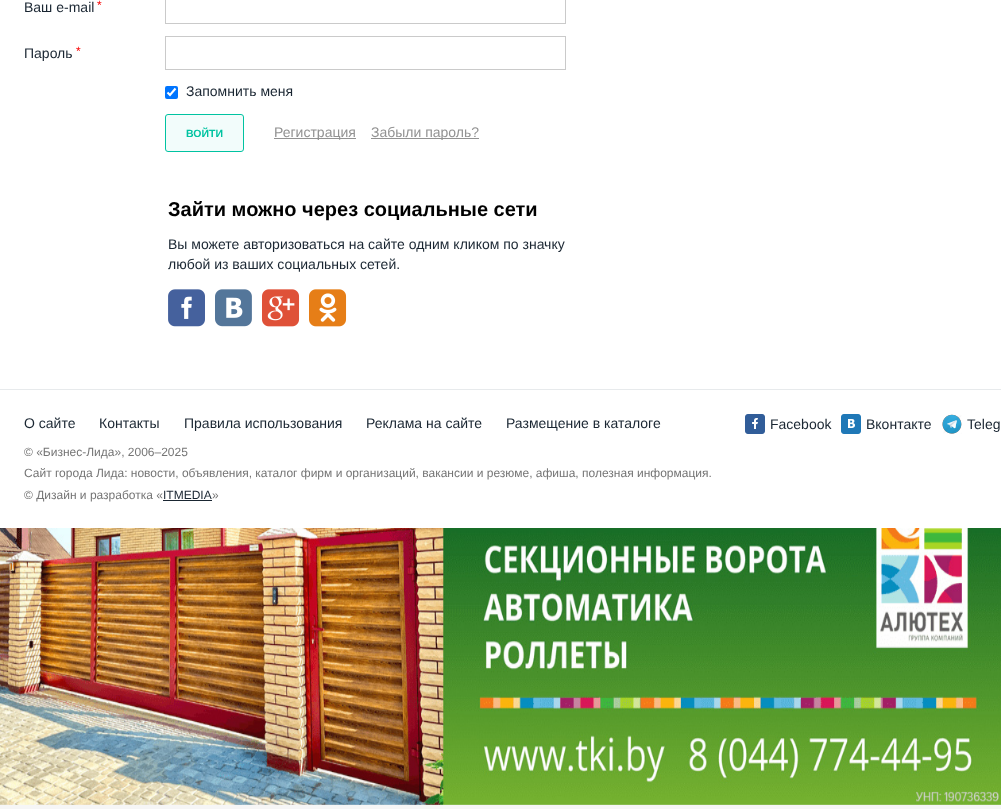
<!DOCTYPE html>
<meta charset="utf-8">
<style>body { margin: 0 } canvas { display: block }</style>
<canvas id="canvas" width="1001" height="809"></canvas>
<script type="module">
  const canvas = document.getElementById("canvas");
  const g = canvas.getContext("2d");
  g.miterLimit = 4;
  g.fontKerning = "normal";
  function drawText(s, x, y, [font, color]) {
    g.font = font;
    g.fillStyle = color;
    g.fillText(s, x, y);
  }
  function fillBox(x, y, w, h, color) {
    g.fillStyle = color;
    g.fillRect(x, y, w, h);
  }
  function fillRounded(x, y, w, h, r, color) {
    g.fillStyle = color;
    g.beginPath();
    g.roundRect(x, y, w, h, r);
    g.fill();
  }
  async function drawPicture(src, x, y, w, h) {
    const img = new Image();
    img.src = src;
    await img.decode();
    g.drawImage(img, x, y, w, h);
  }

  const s1 = ["14px Arimo", "#1A2632"];
  const s2 = ["12px Arimo", "#F80000"];
  const s3 = ["bold 10.5px Arimo", "#00C3A1"];
  const s4 = ["14px Liberation Sans", "#929292"];
  const s5 = ["bold 20px Arimo", "#000000"];
  const s6 = ["14px Liberation Sans", "#1A2632"];
  const s7 = ["12px Liberation Sans", "#757575"];
  const s8 = ["12px Liberation Sans", "#1A2632"];

  fillBox(0, 0, 1001, 809, "#F6F6F6");
  fillBox(0, 0, 1001, 528, "#FFFFFF");
  drawText("Ваш e-mail", 24, 12, s1);
  drawText("*", 97, 9, s2);
  g.strokeStyle = "#CACACA";
  g.strokeRect(165.5, -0.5, 400, 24);
  drawText("Пароль", 24, 58, s1);
  drawText("*", 76, 55, s2);
  g.strokeRect(165.5, 36.5, 400, 33);
  fillRounded(165, 86, 13, 13, 2, "#0075FF");
  g.beginPath();
  g.moveTo(167.5, 92.5);
  g.lineTo(170, 95);
  g.lineTo(175.5, 88.5);
  g.strokeStyle = "#FFFFFF";
  g.lineWidth = 2.1;
  g.stroke();
  drawText("Запомнить меня", 186, 96, s1);
  g.fillStyle = "#F2FCFB";
  g.beginPath();
  g.roundRect(165.5, 114.5, 78, 37, 2.5);
  g.fill();
  g.strokeStyle = "#00C3A1";
  g.lineWidth = 1;
  g.stroke();
  drawText("ВОЙТИ", 186, 137, s3);
  fillBox(274, 138, 82, 1, "#929292");
  drawText("Регистрация", 274, 137, s4);
  fillBox(371, 138, 108, 1, "#929292");
  drawText("Забыли пароль?", 371, 137, s4);
  drawText("Зайти можно через социальные сети", 168, 216, s5);
  drawText("Вы можете авторизоваться на сайте одним кликом по значку", 168, 249, s6);
  drawText("любой из ваших социальных сетей.", 168, 269, s6);
  await drawPicture("pic1.png", 168, 289, 37, 38);
  await drawPicture("pic2.png", 215, 289, 37, 38);
  await drawPicture("pic3.png", 262, 289, 38, 38);
  await drawPicture("pic4.png", 309, 289, 38, 38);
  fillBox(0, 389, 1001, 1, "#E7EAEC");
  drawText("О сайте", 24, 428, s1);
  drawText("Контакты", 99, 428, s1);
  drawText("Правила использования", 184, 428, s1);
  drawText("Реклама на сайте", 366, 428, s1);
  drawText("Размещение в каталоге", 506, 428, s1);
  drawText("© «Бизнес-Лида», 2006–2025", 24, 456, s7);
  drawText("Сайт города Лида: новости, объявления, каталог фирм и организаций, вакансии и резюме, афиша, полезная информация.", 24, 477, s7);
  drawText("© Дизайн и разработка «", 24, 499, s7);
  fillBox(163, 500, 49, 1, "#1A2632");
  drawText("ITMEDIA", 163, 499, s8);
  drawText("»", 212, 499, s7);
  await drawPicture("pic5.png", 745, 414, 20, 20);
  drawText("Facebook", 770, 429, s1);
  await drawPicture("pic6.png", 841, 414, 20, 20);
  drawText("Вконтакте", 866, 429, s1);
  await drawPicture("pic7.png", 942, 414, 20, 20);
  drawText("Teleg", 967, 429, s1);
  await drawPicture("pic8.png", 0, 528, 1001, 277);
</script>
